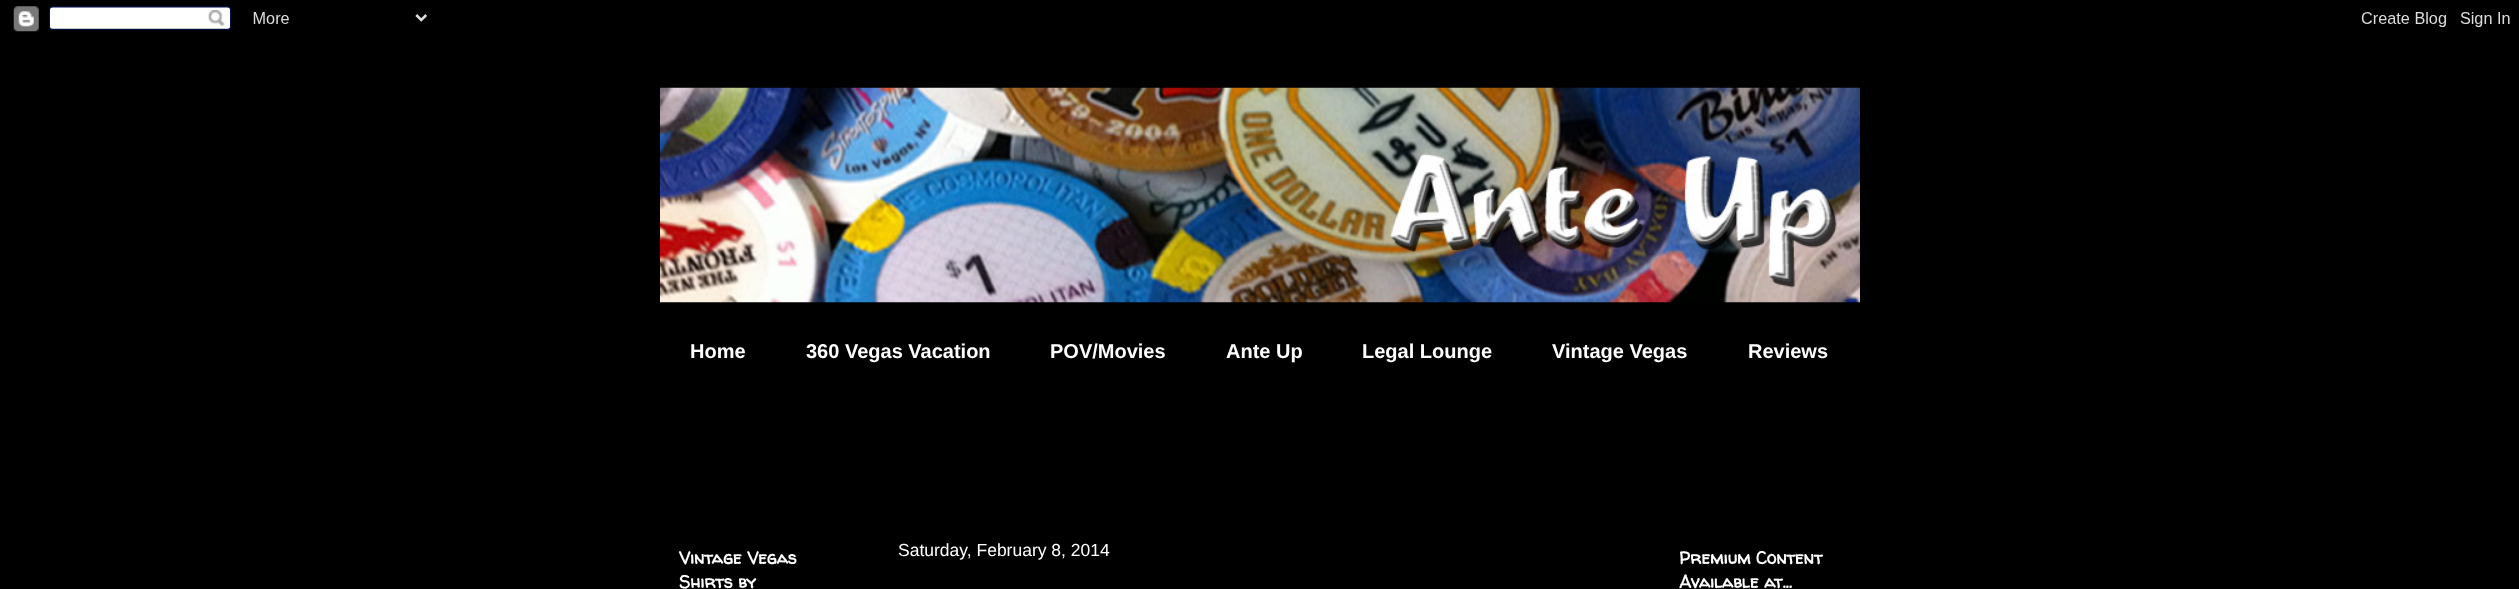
<!DOCTYPE html>
<meta charset="utf-8">
<style>body { margin: 0 } canvas { display: block }</style>
<canvas id="canvas" width="2519" height="589"></canvas>
<script type="module">
  const canvas = document.getElementById("canvas");
  const g = canvas.getContext("2d");
  g.miterLimit = 4;
  g.fontKerning = "normal";
  function drawText(s, x, y, [font, color]) {
    g.font = font;
    g.fillStyle = color;
    g.fillText(s, x, y);
  }
  function fillBox(x, y, w, h, color) {
    g.fillStyle = color;
    g.fillRect(x, y, w, h);
  }
  async function drawPicture(src, x, y, w, h) {
    const img = new Image();
    img.src = src;
    await img.decode();
    g.drawImage(img, x, y, w, h);
  }

  const s1 = ["bold 20px Liberation Sans", "#FFFFFF"];
  const s2 = ["bold 17.5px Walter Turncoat", "#FFFFFF"];
  const s3 = ["17.5px Liberation Sans", "#FFFFFF"];

  fillBox(0, 0, 2519, 589, "#000000");
  await drawPicture("pic1.png", 13, 6, 2497, 26);
  await drawPicture("pic2.png", 660, 87, 1200, 216);
  drawText("Home", 690, 358, s1);
  drawText("360 Vegas Vacation", 806, 358, s1);
  drawText("POV/Movies", 1050, 358, s1);
  drawText("Ante Up", 1226, 358, s1);
  drawText("Legal Lounge", 1362, 358, s1);
  drawText("Vintage Vegas", 1552, 358, s1);
  drawText("Reviews", 1748, 358, s1);
  drawText("Vintage Vegas", 679, 564, s2);
  drawText("Shirts by", 679, 588, s2);
  drawText("Saturday, February 8, 2014", 898, 556, s3);
  drawText("Premium Content", 1679, 564, s2);
  drawText("Available at...", 1679, 588, s2);
</script>
